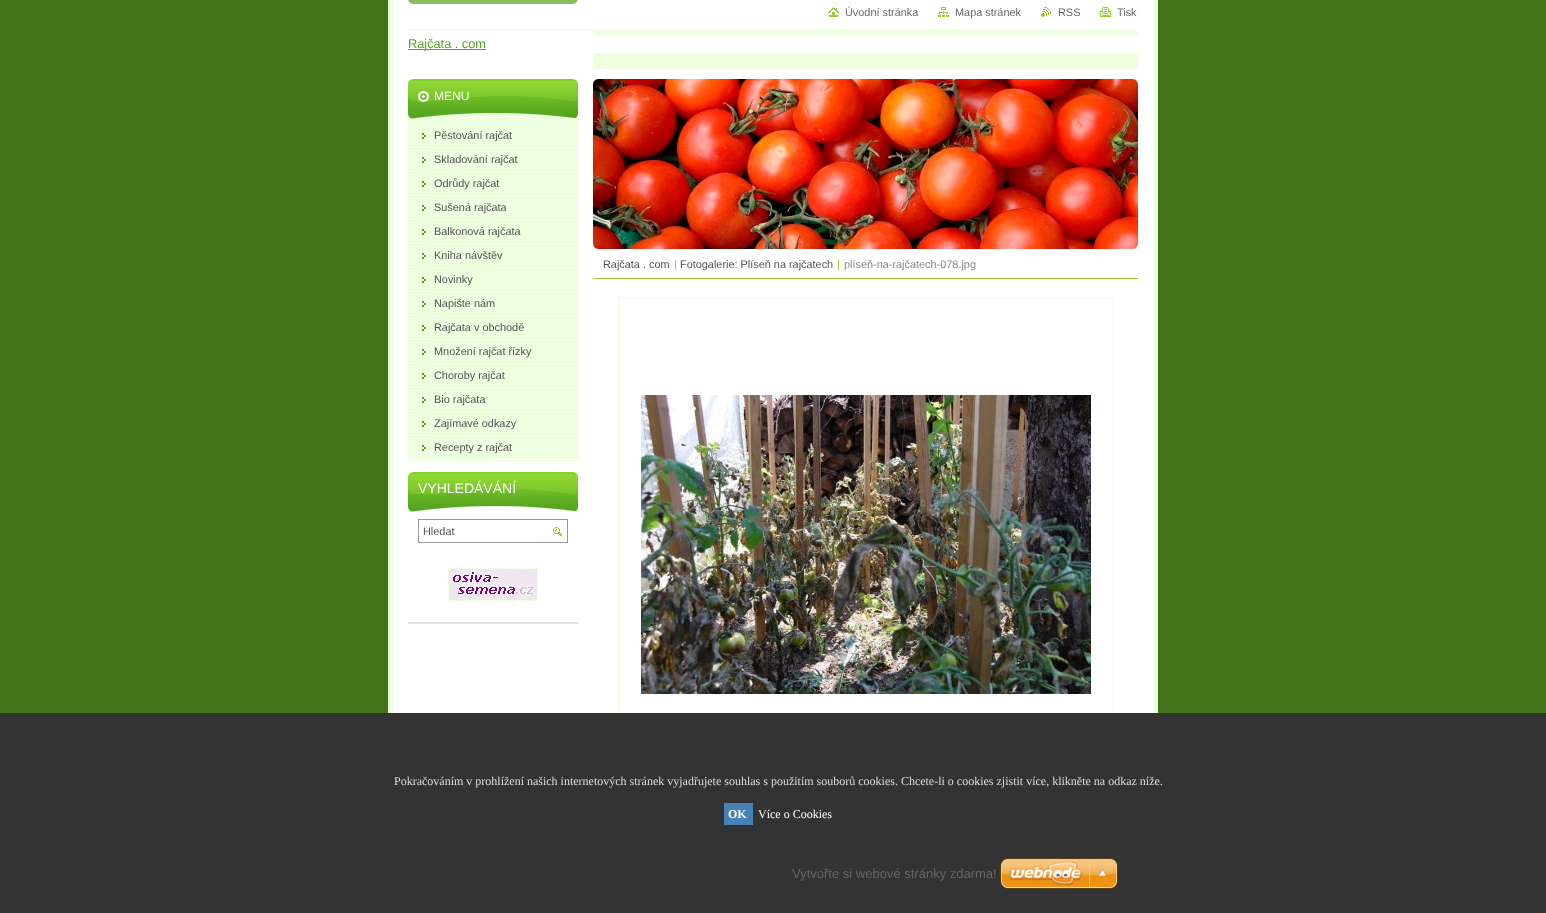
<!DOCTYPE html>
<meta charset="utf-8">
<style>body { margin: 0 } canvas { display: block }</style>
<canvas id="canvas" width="1546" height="913"></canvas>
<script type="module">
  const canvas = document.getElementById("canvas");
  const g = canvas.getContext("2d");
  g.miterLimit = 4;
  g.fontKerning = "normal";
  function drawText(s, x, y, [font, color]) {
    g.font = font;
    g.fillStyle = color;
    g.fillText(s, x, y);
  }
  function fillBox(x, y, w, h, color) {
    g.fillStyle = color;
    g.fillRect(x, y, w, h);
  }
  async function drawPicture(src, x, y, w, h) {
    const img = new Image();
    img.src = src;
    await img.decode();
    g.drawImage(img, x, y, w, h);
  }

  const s1 = ["10.9px Liberation Sans", "#666666"];
  const s2 = ["12.75px Liberation Sans", "#54A21E"];
  const s3 = ["12px Liberation Sans", "#FFFFFF"];
  const s4 = ["10.9px Liberation Sans", "#535353"];
  const s5 = ["14px Liberation Sans", "#FFFFFF"];
  const s6 = ["12px Liberation Serif", "#DDDDDD"];
  const s7 = ["bold 12px Liberation Serif", "#FFFFFF"];
  const s8 = ["12px Liberation Serif", "#FFFFFF"];
  const s9 = ["10.9px Liberation Sans", "#99CC33"];
  const s10 = ["10.9px Liberation Sans", "#878787"];
  const s11 = ["13px Liberation Sans", "#666666"];

  fillBox(0, 0, 1546, 913, "#427319");
  fillBox(393, 0, 760, 713, "#FFFFFF");
  await drawPicture("pic1.png", 408, 0, 170, 4);
  fillBox(1153, 0, 5, 713, "#EDFFDF");
  fillBox(388, 0, 5, 713, "#EDFFDF");
  await drawPicture("pic2.png", 828, 7, 11, 10);
  drawText("Úvodní stránka", 845, 16, s1);
  await drawPicture("pic3.png", 938, 7, 11, 10);
  drawText("Mapa stránek", 955, 16, s1);
  await drawPicture("pic4.png", 1041, 7, 10, 10);
  drawText("RSS", 1058, 16, s1);
  await drawPicture("pic5.png", 1100, 7, 11, 10);
  drawText("Tisk", 1117, 16, s1);
  await drawPicture("pic6.png", 408, 29, 730, 6);
  fillBox(408, 49, 78, 1, "#54A21E");
  drawText("Rajčata . com", 408, 48, s2);
  fillBox(593, 53, 545, 16, "#EDFFDF");
  fillBox(408, 460, 170, 2, "#EDFFDF");
  fillBox(408, 119, 170, 340, "#EDFFDF");
  fillBox(408, 109, 170, 4, "#5AA820");
  await drawPicture("pic7.png", 408, 79, 170, 30);
  await drawPicture("pic8.png", 408, 113, 170, 6);
  drawText("MENU", 434, 100, s3);
  await drawPicture("pic9.png", 422, 133, 4, 6);
  fillBox(408, 147, 170, 1, "#FFFFFF");
  drawText("Pěstování rajčat", 434, 139, s4);
  await drawPicture("pic9.png", 422, 157, 4, 6);
  fillBox(408, 171, 170, 1, "#FFFFFF");
  drawText("Skladování rajčat", 434, 163, s4);
  await drawPicture("pic9.png", 422, 181, 4, 6);
  fillBox(408, 195, 170, 1, "#FFFFFF");
  drawText("Odrůdy rajčat", 434, 187, s4);
  await drawPicture("pic9.png", 422, 205, 4, 6);
  fillBox(408, 219, 170, 1, "#FFFFFF");
  drawText("Sušená rajčata", 434, 211, s4);
  await drawPicture("pic9.png", 422, 229, 4, 6);
  fillBox(408, 243, 170, 1, "#FFFFFF");
  drawText("Balkonová rajčata", 434, 235, s4);
  await drawPicture("pic9.png", 422, 253, 4, 6);
  fillBox(408, 267, 170, 1, "#FFFFFF");
  drawText("Kniha návštěv", 434, 259, s4);
  await drawPicture("pic9.png", 422, 277, 4, 6);
  fillBox(408, 291, 170, 1, "#FFFFFF");
  drawText("Novinky", 434, 283, s4);
  await drawPicture("pic9.png", 422, 301, 4, 6);
  fillBox(408, 315, 170, 1, "#FFFFFF");
  drawText("Napište nám", 434, 307, s4);
  await drawPicture("pic9.png", 422, 325, 4, 6);
  fillBox(408, 339, 170, 1, "#FFFFFF");
  drawText("Rajčata v obchodě", 434, 331, s4);
  await drawPicture("pic9.png", 422, 349, 4, 6);
  fillBox(408, 363, 170, 1, "#FFFFFF");
  drawText("Množení rajčat řízky", 434, 355, s4);
  await drawPicture("pic9.png", 422, 373, 4, 6);
  fillBox(408, 387, 170, 1, "#FFFFFF");
  drawText("Choroby rajčat", 434, 379, s4);
  await drawPicture("pic9.png", 422, 397, 4, 6);
  fillBox(408, 411, 170, 1, "#FFFFFF");
  drawText("Bio rajčata", 434, 403, s4);
  await drawPicture("pic9.png", 422, 421, 4, 6);
  fillBox(408, 435, 170, 1, "#FFFFFF");
  drawText("Zajímavé odkazy", 434, 427, s4);
  await drawPicture("pic9.png", 422, 445, 4, 6);
  drawText("Recepty z rajčat", 434, 451, s4);
  fillBox(408, 503, 170, 4, "#5AA820");
  await drawPicture("pic10.png", 408, 472, 170, 31);
  await drawPicture("pic11.png", 408, 506, 170, 6);
  drawText("VYHLEDÁVÁNÍ", 418, 493, s5);
  g.strokeStyle = "#999999";
  g.strokeRect(418.5, 519.5, 149, 23);
  drawText("Hledat", 423, 535, s4);
  await drawPicture("pic12.png", 553, 527, 9, 9);
  fillBox(408, 622, 170, 2, "#E2E5E8");
  g.strokeStyle = "#EDFFDF";
  g.strokeRect(448.5, 568.5, 89, 32);
  await drawPicture("pic13.png", 449, 569, 88, 31);
  g.strokeRect(618.5, 297.5, 495, 525);
  fillBox(0, 713, 1546, 200, "#333333");
  drawText("Pokračováním v prohlížení našich internetových stránek vyjadřujete souhlas s použitím souborů cookies. Chcete-li o cookies zjistit více, klikněte na odkaz níže.", 394, 785, s6);
  fillBox(724, 803, 29, 22, "#4682B4");
  drawText("OK", 728, 818, s7);
  drawText("Více o Cookies", 758, 818, s8);
  await drawPicture("pic14.png", 593, 79, 545, 170);
  await drawPicture("pic15.png", 593, 79, 545, 170);
  fillBox(593, 278, 545, 1, "#99CC33");
  drawText("Rajčata . com", 603, 268, s4);
  drawText("|", 674, 268, s9);
  drawText("Fotogalerie: Plíseň na rajčatech", 680, 268, s4);
  drawText("|", 837, 268, s9);
  drawText("plíseň-na-rajčatech-078.jpg", 844, 268, s10);
  await drawPicture("pic16.png", 641, 395, 450, 299);
  drawText("Vytvořte si webové stránky zdarma!", 792, 878, s11);
  await drawPicture("pic17.png", 1000, 858, 118, 31);
</script>
